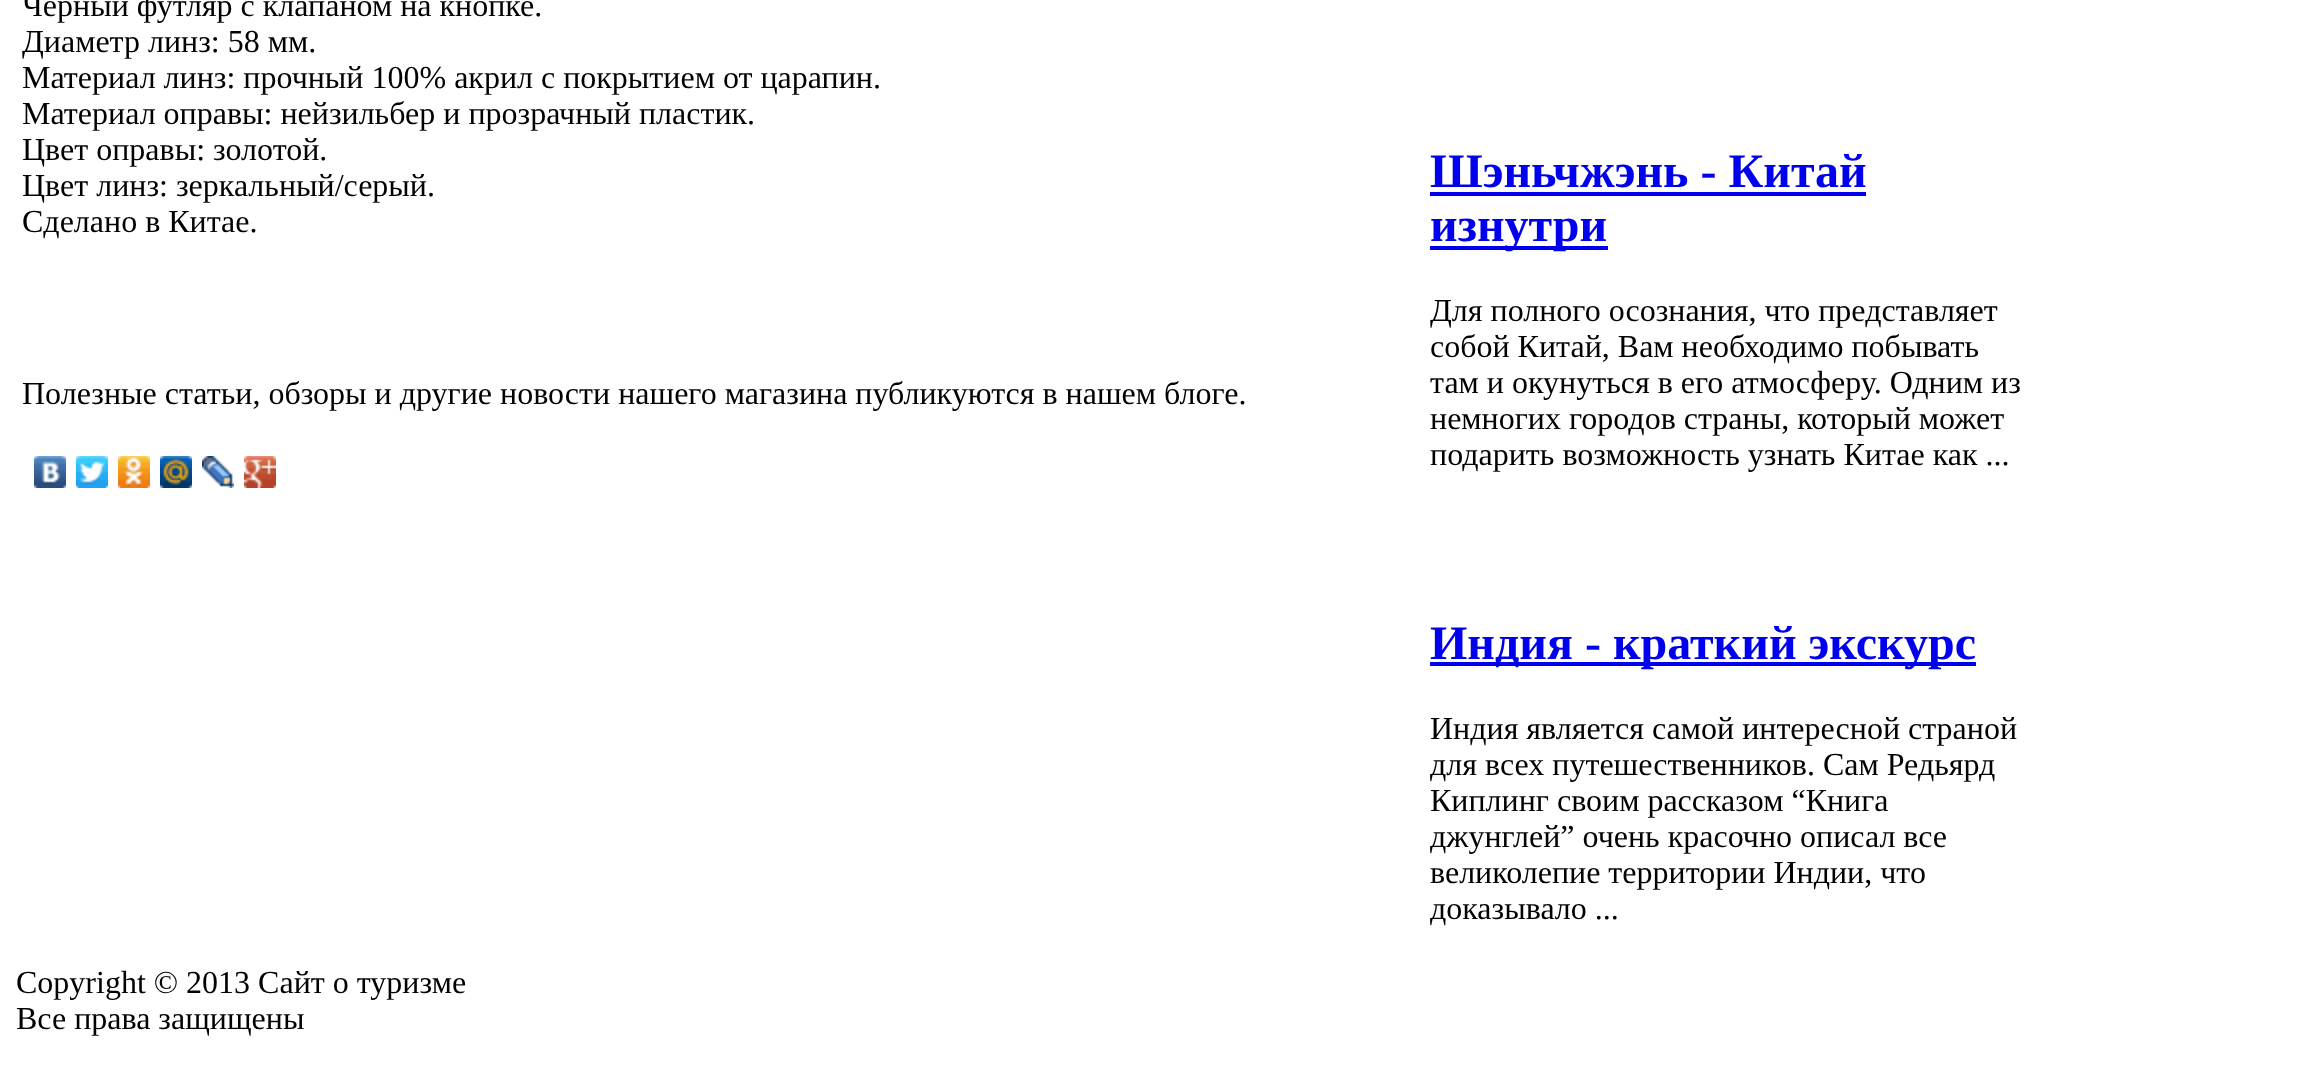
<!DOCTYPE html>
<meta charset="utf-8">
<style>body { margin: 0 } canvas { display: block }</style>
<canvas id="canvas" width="2305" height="1067"></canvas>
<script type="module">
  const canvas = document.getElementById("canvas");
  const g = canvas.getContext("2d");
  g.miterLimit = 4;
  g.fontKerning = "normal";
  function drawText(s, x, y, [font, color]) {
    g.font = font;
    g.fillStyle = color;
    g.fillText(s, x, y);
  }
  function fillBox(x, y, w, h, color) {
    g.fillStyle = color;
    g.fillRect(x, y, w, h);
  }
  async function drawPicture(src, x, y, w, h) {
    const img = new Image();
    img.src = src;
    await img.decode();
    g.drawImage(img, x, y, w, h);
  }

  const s1 = ["32px Liberation Serif", "#000000"];
  const s2 = ["bold 48px Liberation Serif", "#0000EE"];

  fillBox(0, 0, 2305, 1067, "#FFFFFF");
  drawText("Черный футляр с клапаном на кнопке.", 22, 16, s1);
  drawText("Диаметр линз: 58 мм.", 22, 52, s1);
  drawText("Материал линз: прочный 100% акрил с покрытием от царапин.", 22, 88, s1);
  drawText("Материал оправы: нейзильбер и прозрачный пластик.", 22, 124, s1);
  drawText("Цвет оправы: золотой.", 22, 160, s1);
  drawText("Цвет линз: зеркальный/серый.", 22, 196, s1);
  drawText("Сделано в Китае.", 22, 232, s1);
  drawText("Полезные статьи, обзоры и другие новости нашего магазина публикуются в нашем блоге.", 22, 404, s1);
  await drawPicture("pic1.png", 34, 456, 32, 32);
  await drawPicture("pic2.png", 76, 456, 32, 32);
  await drawPicture("pic3.png", 118, 456, 32, 32);
  await drawPicture("pic4.png", 160, 456, 32, 32);
  await drawPicture("pic5.png", 202, 456, 32, 32);
  await drawPicture("pic6.png", 244, 456, 32, 32);
  drawText("Шэньчжэнь - Китай", 1430, 187, s2);
  fillBox(1430, 192, 436, 4, "#0000EE");
  fillBox(1430, 246, 178, 4, "#0000EE");
  drawText("изнутри", 1430, 241, s2);
  drawText("Для полного осознания, что представляет", 1430, 321, s1);
  drawText("собой Китай, Вам необходимо побывать", 1430, 357, s1);
  drawText("там и окунуться в его атмосферу. Одним из", 1430, 393, s1);
  drawText("немногих городов страны, который может", 1430, 429, s1);
  drawText("подарить возможность узнать Китае как ...", 1430, 465, s1);
  fillBox(1430, 662, 546, 4, "#0000EE");
  drawText("Индия - краткий экскурс", 1430, 659, s2);
  drawText("Индия является самой интересной страной", 1430, 739, s1);
  drawText("для всех путешественников. Сам Редьярд", 1430, 775, s1);
  drawText("Киплинг своим рассказом “Книга", 1430, 811, s1);
  drawText("джунглей” очень красочно описал все", 1430, 847, s1);
  drawText("великолепие территории Индии, что", 1430, 883, s1);
  drawText("доказывало ...", 1430, 919, s1);
  drawText("Copyright © 2013 Сайт о туризме", 16, 993, s1);
  drawText("Все права защищены", 16, 1029, s1);
</script>
